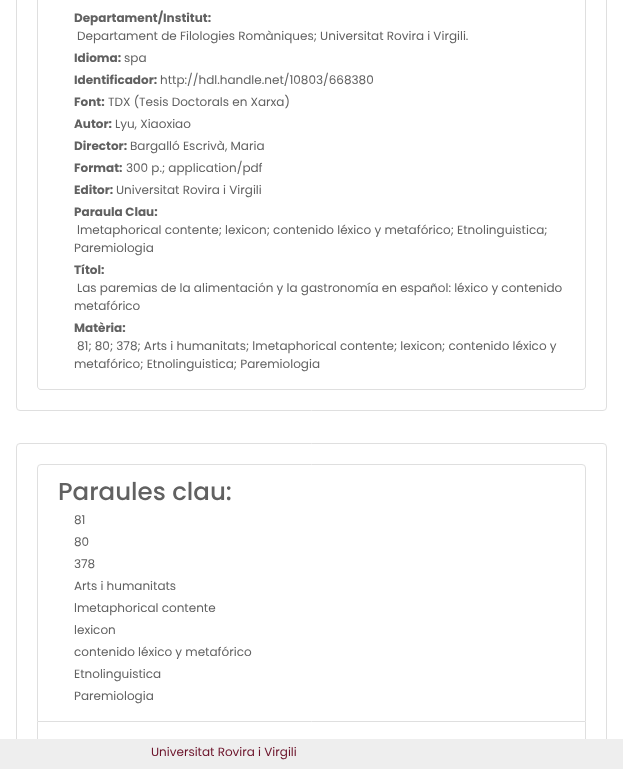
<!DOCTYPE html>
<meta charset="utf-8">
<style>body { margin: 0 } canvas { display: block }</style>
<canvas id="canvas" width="623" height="769"></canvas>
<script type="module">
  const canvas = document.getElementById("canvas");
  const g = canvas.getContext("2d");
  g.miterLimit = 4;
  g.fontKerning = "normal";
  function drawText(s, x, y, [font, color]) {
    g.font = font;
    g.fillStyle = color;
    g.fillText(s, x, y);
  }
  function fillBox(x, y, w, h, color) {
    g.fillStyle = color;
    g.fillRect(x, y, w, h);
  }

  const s1 = ["bold 12px Poppins", "#616161"];
  const s2 = ["12px Poppins", "#616161"];
  const s3 = ["500 24.5px Poppins", "#616161"];
  const s4 = ["12px Poppins", "#6B1229"];

  fillBox(0, 0, 623, 769, "#FFFFFF");
  g.beginPath();
  g.roundRect(16.5, -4.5, 590, 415, 3.5);
  g.strokeStyle = "#DFDFDF";
  g.stroke();
  g.fillStyle = "#DFDFDF";
  g.beginPath();
  g.moveTo(37, -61);
  g.lineTo(586, -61);
  g.lineTo(586, 386);
  g.bezierCurveTo(586, 388, 584, 390, 582, 390);
  g.lineTo(41, 390);
  g.bezierCurveTo(39, 390, 37, 388, 37, 386);
  g.closePath();
  g.moveTo(38, -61);
  g.lineTo(585, -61);
  g.lineTo(585, 386);
  g.bezierCurveTo(585, 388, 584, 389, 582, 389);
  g.lineTo(41, 389);
  g.bezierCurveTo(39, 389, 38, 388, 38, 386);
  g.closePath();
  g.fill("evenodd");
  drawText("Departament/Institut:", 74, 22, s1);
  drawText("Departament de Filologies Romàniques; Universitat Rovira i Virgili.", 77, 40, s2);
  drawText("Idioma:", 74, 62, s1);
  drawText("spa", 124, 62, s2);
  drawText("Identificador:", 74, 84, s1);
  drawText("http://hdl.handle.net/10803/668380", 160, 84, s2);
  drawText("Font:", 74, 106, s1);
  drawText("TDX (Tesis Doctorals en Xarxa)", 108, 106, s2);
  drawText("Autor:", 74, 128, s1);
  drawText("Lyu, Xiaoxiao", 115, 128, s2);
  drawText("Director:", 74, 150, s1);
  drawText("Bargalló Escrivà, Maria", 130, 150, s2);
  drawText("Format:", 74, 172, s1);
  drawText("300 p.; application/pdf", 126, 172, s2);
  drawText("Editor:", 74, 194, s1);
  drawText("Universitat Rovira i Virgili", 116, 194, s2);
  drawText("Paraula Clau:", 74, 216, s1);
  drawText("lmetaphorical contente; lexicon; contenido léxico y metafórico; Etnolinguistica;", 77, 234, s2);
  drawText("Paremiologia", 74, 252, s2);
  drawText("Títol:", 74, 274, s1);
  drawText("Las paremias de la alimentación y la gastronomía en español: léxico y contenido", 77, 292, s2);
  drawText("metafórico", 74, 310, s2);
  drawText("Matèria:", 74, 332, s1);
  drawText("81; 80; 378; Arts i humanitats; lmetaphorical contente; lexicon; contenido léxico y", 77, 350, s2);
  drawText("metafórico; Etnolinguistica; Paremiologia", 74, 368, s2);
  g.beginPath();
  g.roundRect(16.5, 443.5, 590, 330, 3.5);
  g.stroke();
  g.beginPath();
  g.roundRect(37.5, 464.5, 548, 257, [3.5, 3.5, 0, 0]);
  g.stroke();
  drawText("Paraules clau:", 58, 500, s3);
  drawText("81", 74, 524, s2);
  drawText("80", 74, 546, s2);
  drawText("378", 74, 568, s2);
  drawText("Arts i humanitats", 74, 590, s2);
  drawText("lmetaphorical contente", 74, 612, s2);
  drawText("lexicon", 74, 634, s2);
  drawText("contenido léxico y metafórico", 74, 656, s2);
  drawText("Etnolinguistica", 74, 678, s2);
  drawText("Paremiologia", 74, 700, s2);
  g.fillStyle = "#DFDFDF";
  g.beginPath();
  g.moveTo(586, 722);
  g.lineTo(586, 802);
  g.lineTo(585, 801);
  g.lineTo(585, 722);
  g.closePath();
  g.fill();
  g.beginPath();
  g.moveTo(37, 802);
  g.lineTo(37, 722);
  g.lineTo(38, 722);
  g.lineTo(38, 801);
  g.closePath();
  g.fill();
  fillBox(0, 739, 623, 30, "#EEEEEE");
  drawText("Universitat Rovira i Virgili", 151, 756, s4);
</script>
